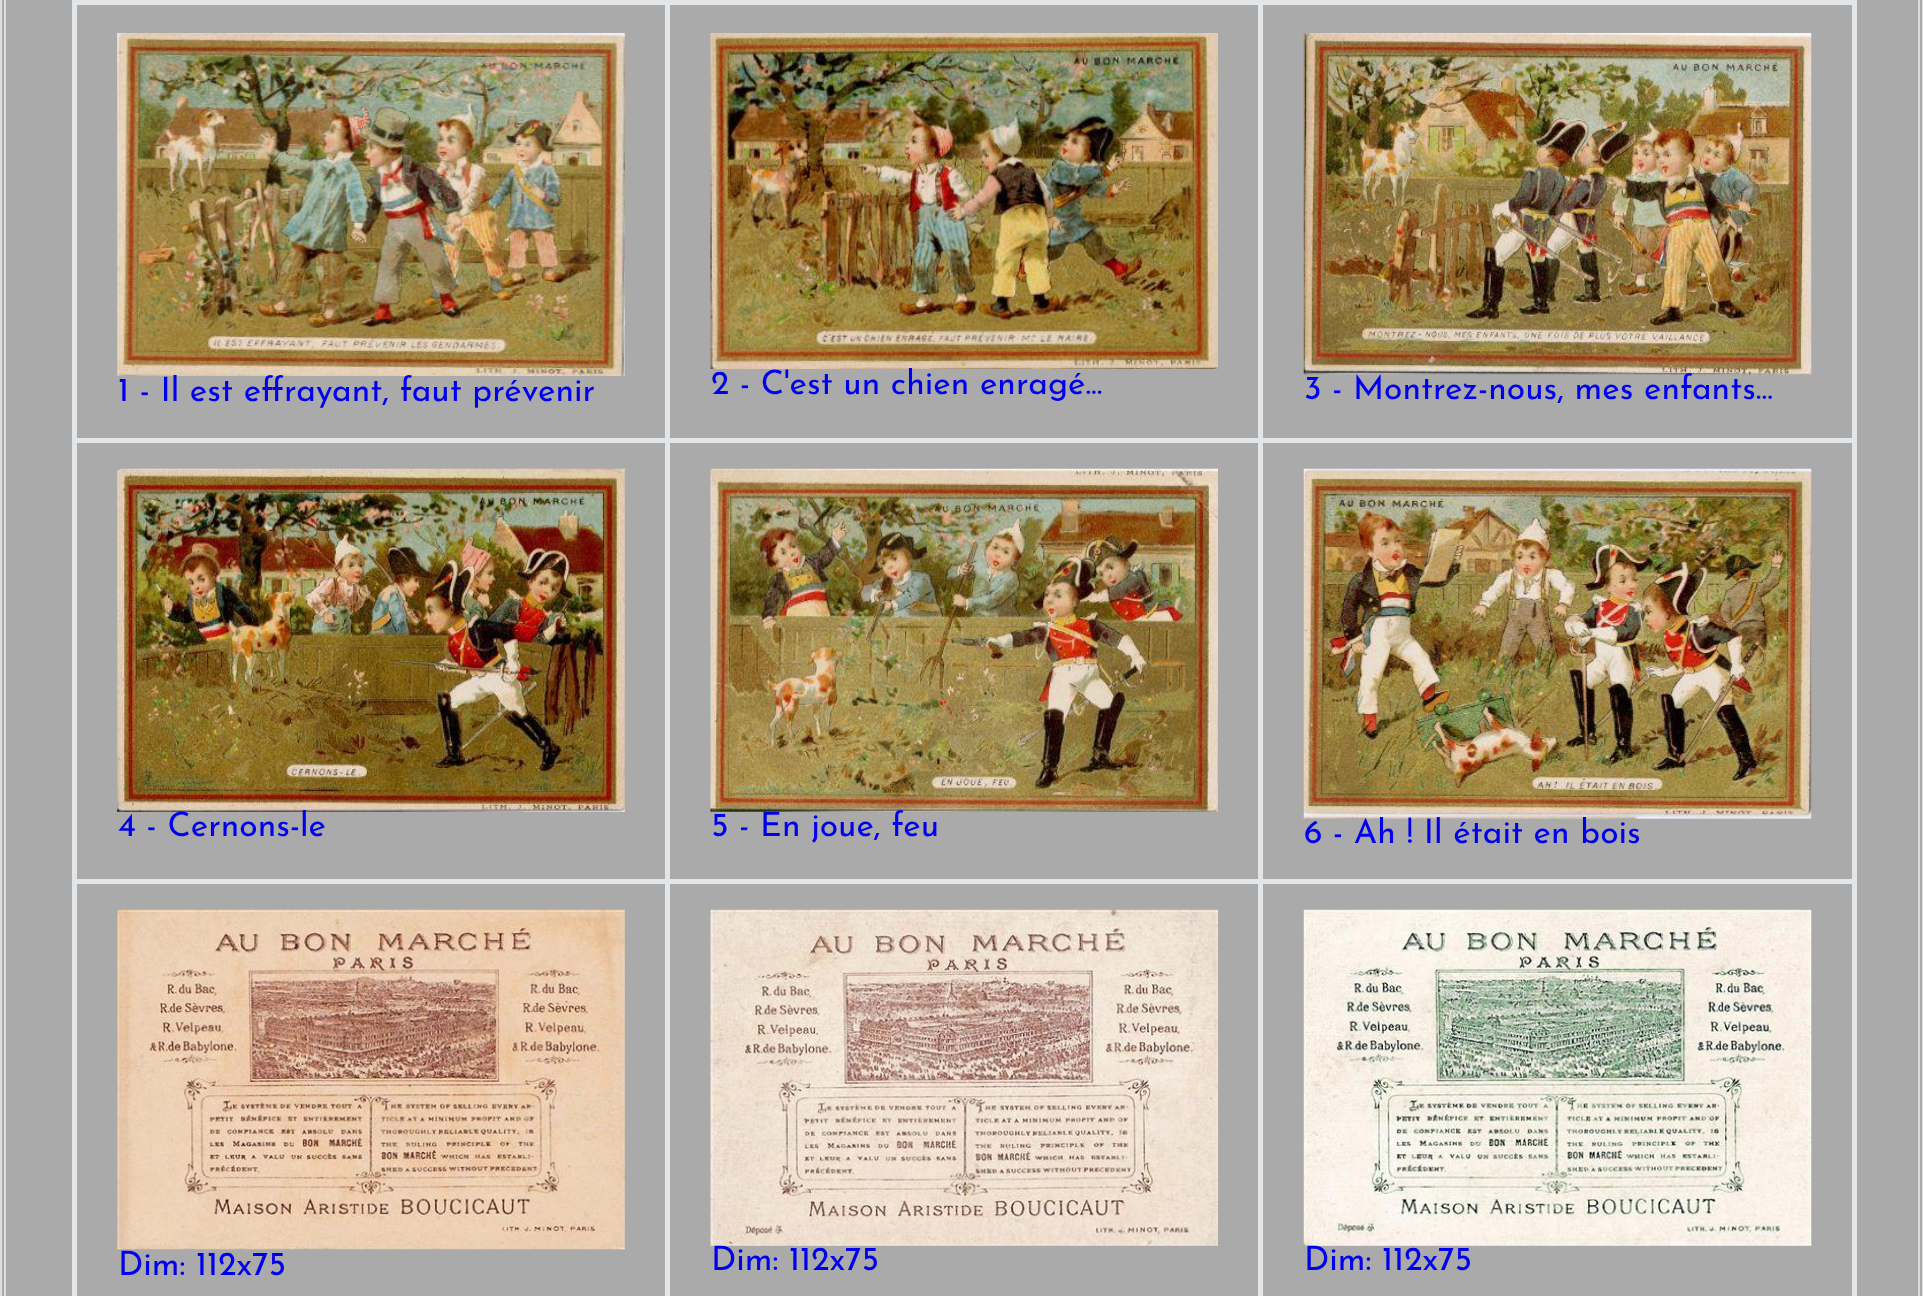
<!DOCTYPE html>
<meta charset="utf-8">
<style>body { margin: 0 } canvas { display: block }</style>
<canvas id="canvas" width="1923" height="1296"></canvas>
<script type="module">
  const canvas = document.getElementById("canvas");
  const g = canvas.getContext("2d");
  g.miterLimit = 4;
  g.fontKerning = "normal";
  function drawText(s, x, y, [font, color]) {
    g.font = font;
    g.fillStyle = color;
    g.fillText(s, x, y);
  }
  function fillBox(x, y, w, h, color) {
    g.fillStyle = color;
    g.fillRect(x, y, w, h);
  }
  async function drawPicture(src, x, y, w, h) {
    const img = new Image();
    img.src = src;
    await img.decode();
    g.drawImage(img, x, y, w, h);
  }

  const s1 = ["33.6px Josefin Sans", "#0000EE"];

  fillBox(0, 0, 1923, 1296, "#AAAAAA");
  fillBox(1918, 0, 2, 1296, "#DDDDDD");
  fillBox(1922, 0, 1, 1296, "#DDDDDD");
  fillBox(0, 0, 2, 1296, "#DDDDDD");
  fillBox(4, 0, 2, 1296, "#DDDDDD");
  g.strokeStyle = "#E2E6E9";
  g.lineWidth = 5;
  g.strokeRect(74.5, 2.5, 593, 438);
  await drawPicture("pic1.png", 117, 33, 508, 343);
  drawText("1 - Il est effrayant, faut prévenir", 118, 401, s1);
  g.strokeRect(667.5, 2.5, 594, 438);
  await drawPicture("pic2.png", 710, 33, 508, 336);
  drawText("2 - C'est un chien enragé...", 711, 394, s1);
  fillBox(1263, 5, 1, 433, "#AAAAAA");
  g.strokeRect(1260.5, 2.5, 594, 438);
  await drawPicture("pic3.png", 1303, 33, 509, 342);
  drawText("3 - Montrez-nous, mes enfants...", 1304, 399, s1);
  g.strokeRect(74.5, 440.5, 593, 441);
  await drawPicture("pic4.png", 117, 468, 508, 344);
  drawText("4 - Cernons-le", 118, 836, s1);
  g.strokeRect(667.5, 440.5, 594, 441);
  await drawPicture("pic5.png", 710, 468, 508, 344);
  drawText("5 - En joue, feu", 711, 836, s1);
  fillBox(1263, 443, 1, 436, "#AAAAAA");
  g.strokeRect(1260.5, 440.5, 594, 441);
  await drawPicture("pic6.png", 1303, 468, 509, 351);
  drawText("6 - Ah ! Il était en bois", 1304, 843, s1);
  g.strokeRect(74.5, 881.5, 593, 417);
  await drawPicture("pic7.png", 117, 909, 508, 341);
  drawText("Dim: 112x75", 118, 1275, s1);
  g.strokeRect(667.5, 881.5, 594, 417);
  await drawPicture("pic8.png", 710, 909, 508, 337);
  drawText("Dim: 112x75", 711, 1270, s1);
  fillBox(1263, 884, 1, 412, "#AAAAAA");
  g.strokeRect(1260.5, 881.5, 594, 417);
  await drawPicture("pic9.png", 1303, 909, 509, 337);
  drawText("Dim: 112x75", 1304, 1270, s1);
</script>
